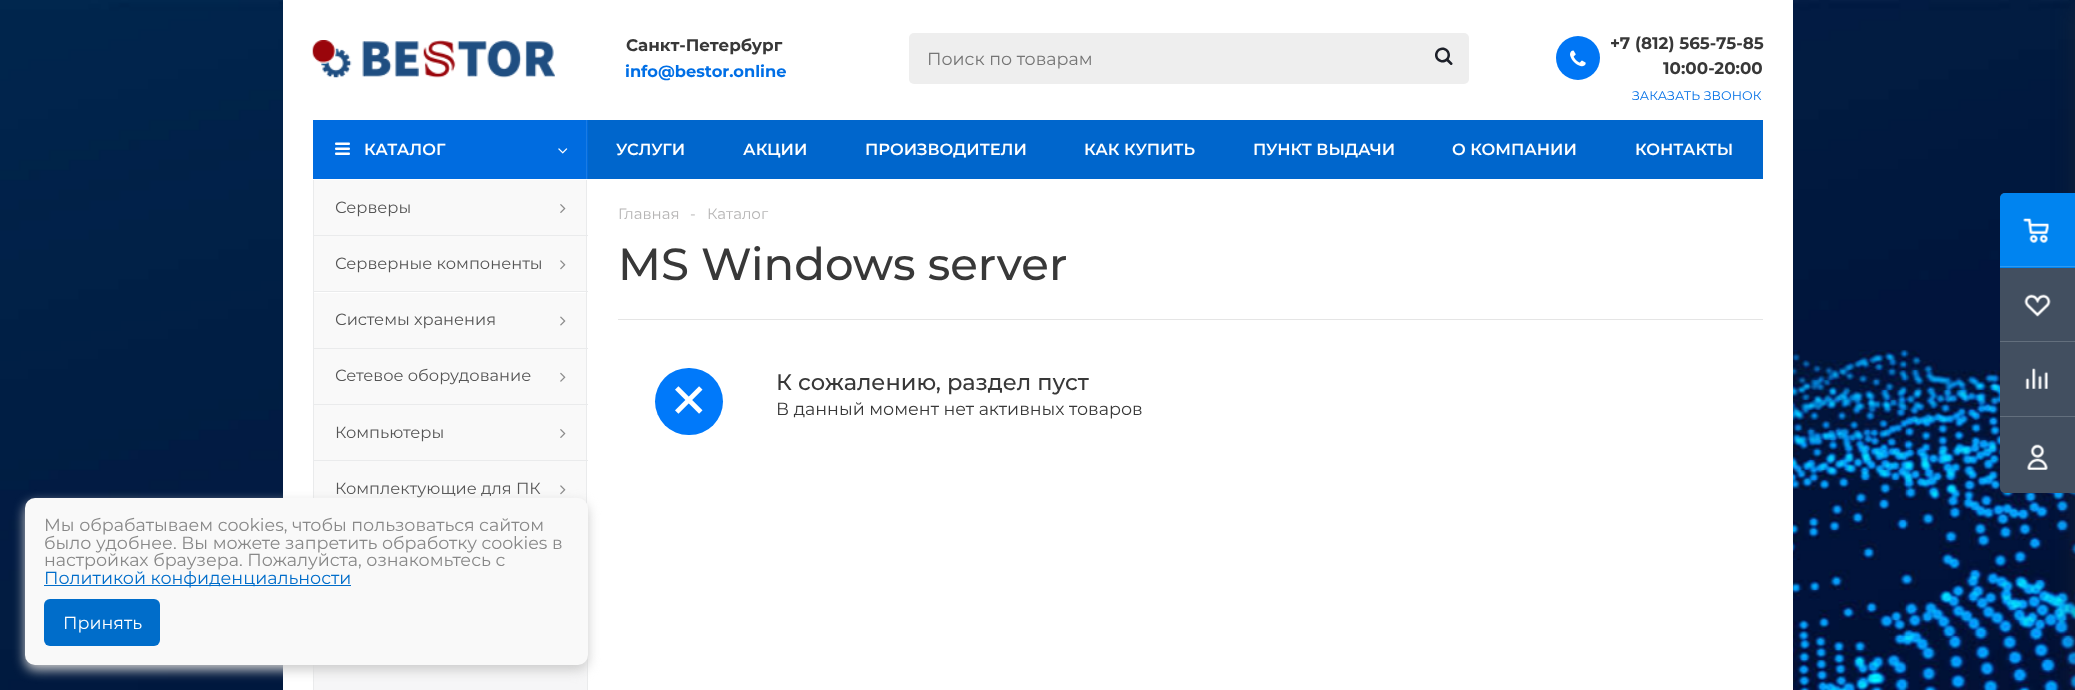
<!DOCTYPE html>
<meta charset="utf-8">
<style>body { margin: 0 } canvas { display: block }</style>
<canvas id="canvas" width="2075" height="690"></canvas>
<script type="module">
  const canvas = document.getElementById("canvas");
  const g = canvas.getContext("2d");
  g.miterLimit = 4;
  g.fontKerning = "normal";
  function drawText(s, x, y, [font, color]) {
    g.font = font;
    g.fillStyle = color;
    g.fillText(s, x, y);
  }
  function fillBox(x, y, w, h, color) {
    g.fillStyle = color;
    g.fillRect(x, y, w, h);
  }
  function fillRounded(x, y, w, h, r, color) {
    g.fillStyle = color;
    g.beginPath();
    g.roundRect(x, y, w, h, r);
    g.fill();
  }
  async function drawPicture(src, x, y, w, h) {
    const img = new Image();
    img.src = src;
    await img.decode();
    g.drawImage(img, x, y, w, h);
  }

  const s1 = ["bold 16.75px Montserrat", "#383838"];
  const s2 = ["bold 16.25px Montserrat", "#006FE6"];
  const s3 = ["17.5px Montserrat", "#757575"];
  const s4 = ["12.5px Montserrat", "#006FE6"];
  const s5 = ["600 16.25px Montserrat", "#FFFFFF"];
  const s6 = ["16.25px Montserrat", "#555555"];
  const s7 = ["15px Montserrat", "#B6B5B5"];
  const s8 = ["500 45px Montserrat", "#383838"];
  const s9 = ["500 22.5px Montserrat", "#383838"];
  const s10 = ["17.5px Montserrat", "#383838"];
  const s11 = ["17.5px Montserrat", "#888888"];
  const s12 = ["17.5px Montserrat", "#006DCA"];
  const s13 = ["17.5px Montserrat", "#FFFFFF"];

  fillBox(0, 0, 2075, 690, "#FFFFFF");
  await drawPicture("pic1.png", 0, 0, 2075, 690);
  fillBox(283, 0, 1510, 690, "#FFFFFF");
  await drawPicture("pic2.png", 312, 40, 243, 38);
  drawText("Санкт-Петербург", 626, 51, s1);
  drawText("info@bestor.online", 625, 77, s2);
  fillRounded(909, 33, 560, 51, 5, "#EEEEEE");
  drawText("Поиск по товарам", 927, 65, s3);
  await drawPicture("pic3.png", 1435, 47, 18, 18);
  g.fillStyle = "#0076F5";
  g.beginPath();
  g.arc(1578, 58, 22, 0, Math.PI * 2);
  g.fill();
  await drawPicture("pic4.png", 1570, 50, 16, 17);
  drawText("+7 (812) 565-75-85", 1610, 49, s1);
  drawText("10:00-20:00", 1663, 74, s1);
  g.letterSpacing = "0.1px";
  drawText("ЗАКАЗАТЬ ЗВОНОК", 1632, 100, s4);
  g.fillStyle = "rgba(44, 44, 44, 0.4)";
  g.filter = "blur(11px)";
  g.beginPath();
  g.roundRect(2075, 8, 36, 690, 2.5);
  g.fill();
  g.filter = "none";
  g.fillStyle = "#424F60";
  g.beginPath();
  g.roundRect(2000, 193, 75, 300, [5, 0, 0, 5]);
  g.fill();
  g.fillStyle = "#0084F0";
  g.beginPath();
  g.roundRect(2000, 193, 75, 75, [5, 0, 0, 0]);
  g.fill();
  await drawPicture("pic5.png", 2023, 218, 26, 25);
  fillBox(2000, 266, 75, 1, "#2E99F0");
  await drawPicture("pic6.png", 2024, 294, 27, 23);
  fillBox(2000, 341, 75, 1, "#636F7D");
  await drawPicture("pic7.png", 2025, 368, 23, 21);
  fillBox(2000, 416, 75, 1, "#636F7D");
  await drawPicture("pic8.png", 2027, 444, 21, 26);
  fillBox(588, 120, 1175, 59, "#0066CC");
  fillBox(313, 120, 275, 59, "#006CE0");
  await drawPicture("pic9.png", 335, 142, 15, 13);
  g.letterSpacing = "0px";
  drawText("КАТАЛОГ", 364, 155, s5);
  fillBox(586, 120, 1, 59, "#1A7BE3");
  await drawPicture("pic10.png", 558, 148, 10, 6);
  drawText("УСЛУГИ", 616, 155, s5);
  drawText("АКЦИИ", 743, 155, s5);
  drawText("ПРОИЗВОДИТЕЛИ", 865, 155, s5);
  drawText("КАК КУПИТЬ", 1084, 155, s5);
  drawText("ПУНКТ ВЫДАЧИ", 1253, 155, s5);
  drawText("О КОМПАНИИ", 1452, 155, s5);
  drawText("КОНТАКТЫ", 1635, 155, s5);
  fillBox(314, 180, 272, 55, "#F9F9F9");
  fillBox(586, 180, 1, 55, "#EAEBEC");
  fillBox(313, 180, 1, 55, "#EAEBEC");
  drawText("Серверы", 335, 213, s6);
  await drawPicture("pic11.png", 560, 204, 6, 9);
  fillBox(314, 236, 272, 55, "#F9F9F9");
  fillBox(313, 235, 275, 1, "#EAEBEC");
  fillBox(586, 235, 1, 56, "#EAEBEC");
  fillBox(313, 235, 1, 56, "#EAEBEC");
  drawText("Серверные компоненты", 335, 269, s6);
  await drawPicture("pic12.png", 560, 260, 6, 10);
  fillBox(314, 293, 272, 55, "#F9F9F9");
  fillBox(313, 291, 275, 1, "#EAEBEC");
  fillBox(586, 291, 1, 57, "#EAEBEC");
  fillBox(313, 291, 1, 57, "#EAEBEC");
  drawText("Системы хранения", 335, 325, s6);
  await drawPicture("pic13.png", 560, 316, 6, 10);
  fillBox(314, 349, 272, 55, "#F9F9F9");
  fillBox(313, 348, 275, 1, "#EAEBEC");
  fillBox(586, 348, 1, 56, "#EAEBEC");
  fillBox(313, 348, 1, 56, "#EAEBEC");
  drawText("Сетевое оборудование", 335, 381, s6);
  await drawPicture("pic14.png", 560, 372, 6, 10);
  fillBox(314, 405, 272, 55, "#F9F9F9");
  fillBox(313, 404, 275, 1, "#EAEBEC");
  fillBox(586, 404, 1, 56, "#EAEBEC");
  fillBox(313, 404, 1, 56, "#EAEBEC");
  drawText("Компьютеры", 335, 438, s6);
  await drawPicture("pic11.png", 560, 429, 6, 9);
  fillBox(314, 461, 272, 41, "#F9F9F9");
  fillBox(313, 460, 275, 1, "#EAEBEC");
  fillBox(586, 460, 1, 44, "#EAEBEC");
  fillBox(313, 460, 1, 38, "#EAEBEC");
  drawText("Комплектующие для ПК", 335, 494, s6);
  await drawPicture("pic12.png", 560, 485, 6, 10);
  fillBox(314, 659, 273, 31, "#F6F6F7");
  g.strokeStyle = "#EAEBEC";
  g.strokeRect(313.5, 631.5, 274, 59);
  drawText("Главная", 618, 219, s7);
  drawText("-", 690, 219, s7);
  drawText("Каталог", 707, 219, s7);
  drawText("MS Windows server", 618, 280, s8);
  fillBox(618, 319, 1145, 1, "#E5E5E5");
  fillRounded(655, 368, 68, 67, 33.5, "#0079FA");
  drawText("К сожалению, раздел пуст", 776, 390, s9);
  drawText("В данный момент нет активных товаров", 776, 415, s10);
  await drawPicture("pic15.png", 675, 386, 28, 28);
  g.fillStyle = "#CCCCCC";
  g.filter = "blur(6px)";
  g.beginPath();
  g.roundRect(25, 503, 563, 167, 10);
  g.fill();
  g.filter = "none";
  fillRounded(25, 498, 563, 167, 10, "#F9F9F9");
  drawText("Мы обрабатываем cookies, чтобы пользоваться сайтом", 44, 531, s11);
  drawText("было удобнее. Вы можете запретить обработку cookies в", 44, 549, s11);
  drawText("настройках браузера. Пожалуйста, ознакомьтесь с", 44, 566, s11);
  fillBox(44, 585, 307, 1, "#006DCA");
  drawText("Политикой конфиденциальности", 44, 584, s12);
  fillRounded(44, 599, 116, 47, 6, "#006DCA");
  drawText("Принять", 63, 629, s13);
</script>
